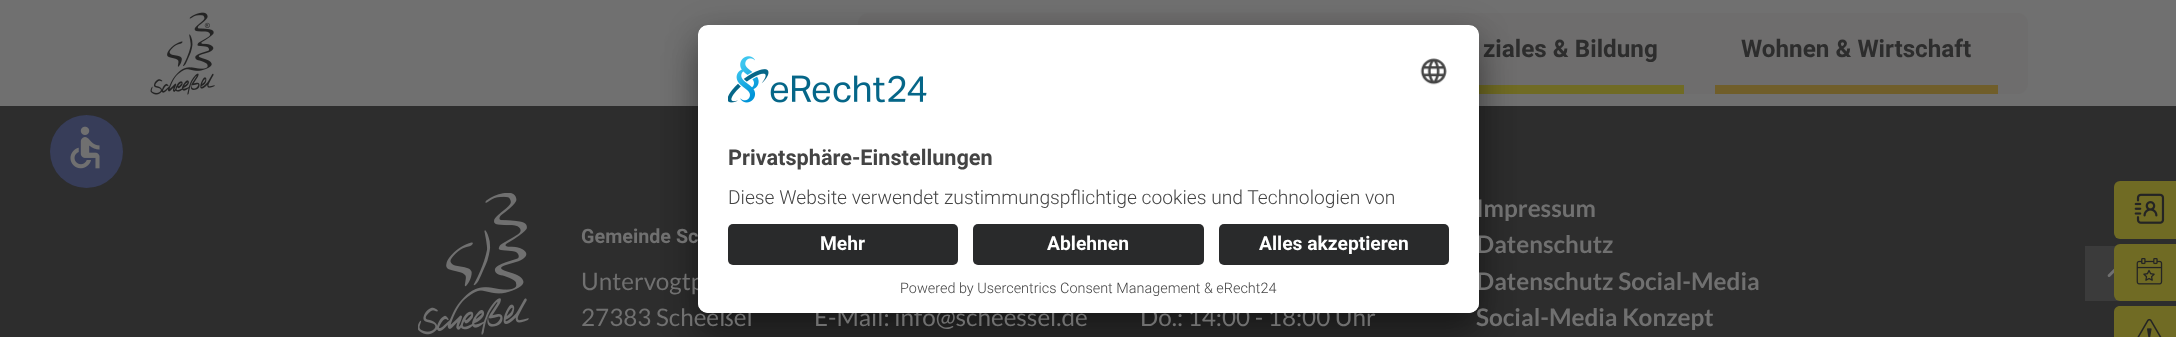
<!DOCTYPE html>
<meta charset="utf-8">
<style>body { margin: 0 } canvas { display: block }</style>
<canvas id="canvas" width="2176" height="337"></canvas>
<script type="module">
  const canvas = document.getElementById("canvas");
  const g = canvas.getContext("2d");
  g.miterLimit = 4;
  g.fontKerning = "normal";
  function drawText(s, x, y, [font, color]) {
    g.font = font;
    g.fillStyle = color;
    g.fillText(s, x, y);
  }
  function fillBox(x, y, w, h, color) {
    g.fillStyle = color;
    g.fillRect(x, y, w, h);
  }
  function fillRounded(x, y, w, h, r, color) {
    g.fillStyle = color;
    g.beginPath();
    g.roundRect(x, y, w, h, r);
    g.fill();
  }
  async function drawPicture(src, x, y, w, h) {
    const img = new Image();
    img.src = src;
    await img.decode();
    g.drawImage(img, x, y, w, h);
  }

  const s1 = ["bold 24.25px Roboto", "#2D2D2D"];
  const s2 = ["bold 19.75px Roboto", "#707070"];
  const s3 = ["24.25px Lato", "#707070"];
  const s4 = ["bold 24.25px Lato", "#707070"];
  const s5 = ["bold 21.7px Roboto", "#444444"];
  const s6 = ["300 19.25px Roboto", "#444444"];
  const s7 = ["bold 19.25px Roboto", "#FFFFFF"];
  const s8 = ["300 14.45px Roboto", "#444444"];

  fillBox(0, 0, 2176, 337, "#2D2D2D");
  fillBox(0, 0, 2176, 106, "#707070");
  await drawPicture("pic1.png", 150, 12, 65, 83);
  fillRounded(858, 13, 1170, 81, 11, "#6E6D6D");
  fillBox(1479, 85, 205, 9, "#706B24");
  drawText("ziales & Bildung", 1483, 57, s1);
  fillBox(1715, 85, 283, 9, "#705E2A");
  drawText("Wohnen & Wirtschaft", 1741, 57, s1);
  g.fillStyle = "#373D59";
  g.beginPath();
  g.arc(86.5, 151.5, 36.5, 0, Math.PI * 2);
  g.fill();
  await drawPicture("pic2.png", 70, 126, 30, 43);
  g.fillStyle = "rgba(0, 0, 0, 0.3)";
  g.filter = "blur(17.5px)";
  g.beginPath();
  g.roundRect(698, 50, 781, 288, 10);
  g.fill();
  g.filter = "none";
  g.fillStyle = "rgba(0, 0, 0, 0.22)";
  g.filter = "blur(16px)";
  g.beginPath();
  g.roundRect(698, 31, 781, 288, 10);
  g.fill();
  g.filter = "none";
  drawText("Gemeinde Sc", 581, 243, s2);
  drawText("Untervogtp", 581, 290, s3);
  drawText("27383 Scheeßel", 581, 326, s3);
  drawText("E-Mail: info@scheessel.de", 814, 326, s3);
  drawText("Do.: 14:00 - 18:00 Uhr", 1140, 326, s3);
  drawText("Impressum", 1476, 217, s4);
  drawText("Datenschutz", 1476, 253, s4);
  drawText("Datenschutz Social-Media", 1476, 290, s4);
  drawText("Social-Media Konzept", 1476, 326, s4);
  fillRounded(698, 25, 781, 288, 10, "#FFFFFF");
  g.save();
  g.beginPath();
  g.roundRect(698, 25, 781, 288, 10);
  g.clip();
  g.beginPath();
  g.roundRect(698, 25, 781, 189, [10, 10, 0, 0]);
  g.clip();
  fillBox(698, 26, 781, 188, "#FFFFFF");
  g.restore();
  await drawPicture("pic3.png", 728, 56, 199, 47);
  await drawPicture("pic4.png", 1420, 58, 27, 27);
  drawText("Privatsphäre-Einstellungen", 728, 165, s5);
  drawText("Diese Website verwendet zustimmungspflichtige cookies und Technologien von", 728, 204, s6);
  g.fillStyle = "#FFFFFF";
  g.beginPath();
  g.roundRect(698, 214, 781, 99, [0, 0, 10, 10]);
  g.fill();
  fillRounded(728, 224, 230, 41, 5, "#292A2B");
  drawText("Mehr", 820, 250, s7);
  fillRounded(973, 224, 231, 41, 5, "#292A2B");
  drawText("Ablehnen", 1047, 250, s7);
  fillRounded(1219, 224, 230, 41, 5, "#292A2B");
  drawText("Alles akzeptieren", 1259, 250, s7);
  drawText("Powered by Usercentrics Consent Management & eRecht24", 900, 293, s8);
  g.fillStyle = "#706B24";
  g.beginPath();
  g.roundRect(2114, 181, 62, 58, [6, 0, 0, 6]);
  g.fill();
  await drawPicture("pic5.png", 2134, 193, 31, 31);
  fillBox(2085, 246, 35, 55, "#3B3B3B");
  g.fillStyle = "#706B24";
  g.beginPath();
  g.roundRect(2114, 244, 62, 57, [6, 0, 0, 6]);
  g.fill();
  await drawPicture("pic6.png", 2136, 258, 27, 27);
  g.beginPath();
  g.moveTo(2120, 306);
  g.lineTo(2176, 306);
  g.lineTo(2176, 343);
  g.lineTo(2120, 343);
  g.bezierCurveTo(2116.5, 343, 2114, 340.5, 2114, 337);
  g.lineTo(2114, 312);
  g.bezierCurveTo(2114, 308.5, 2116.5, 306, 2120, 306);
  g.closePath();
  g.fill();
  await drawPicture("pic7.png", 2137, 318, 25, 19);
  await drawPicture("pic8.png", 418, 193, 111, 142);
  await drawPicture("pic9.png", 2107, 268, 7, 9);
</script>
